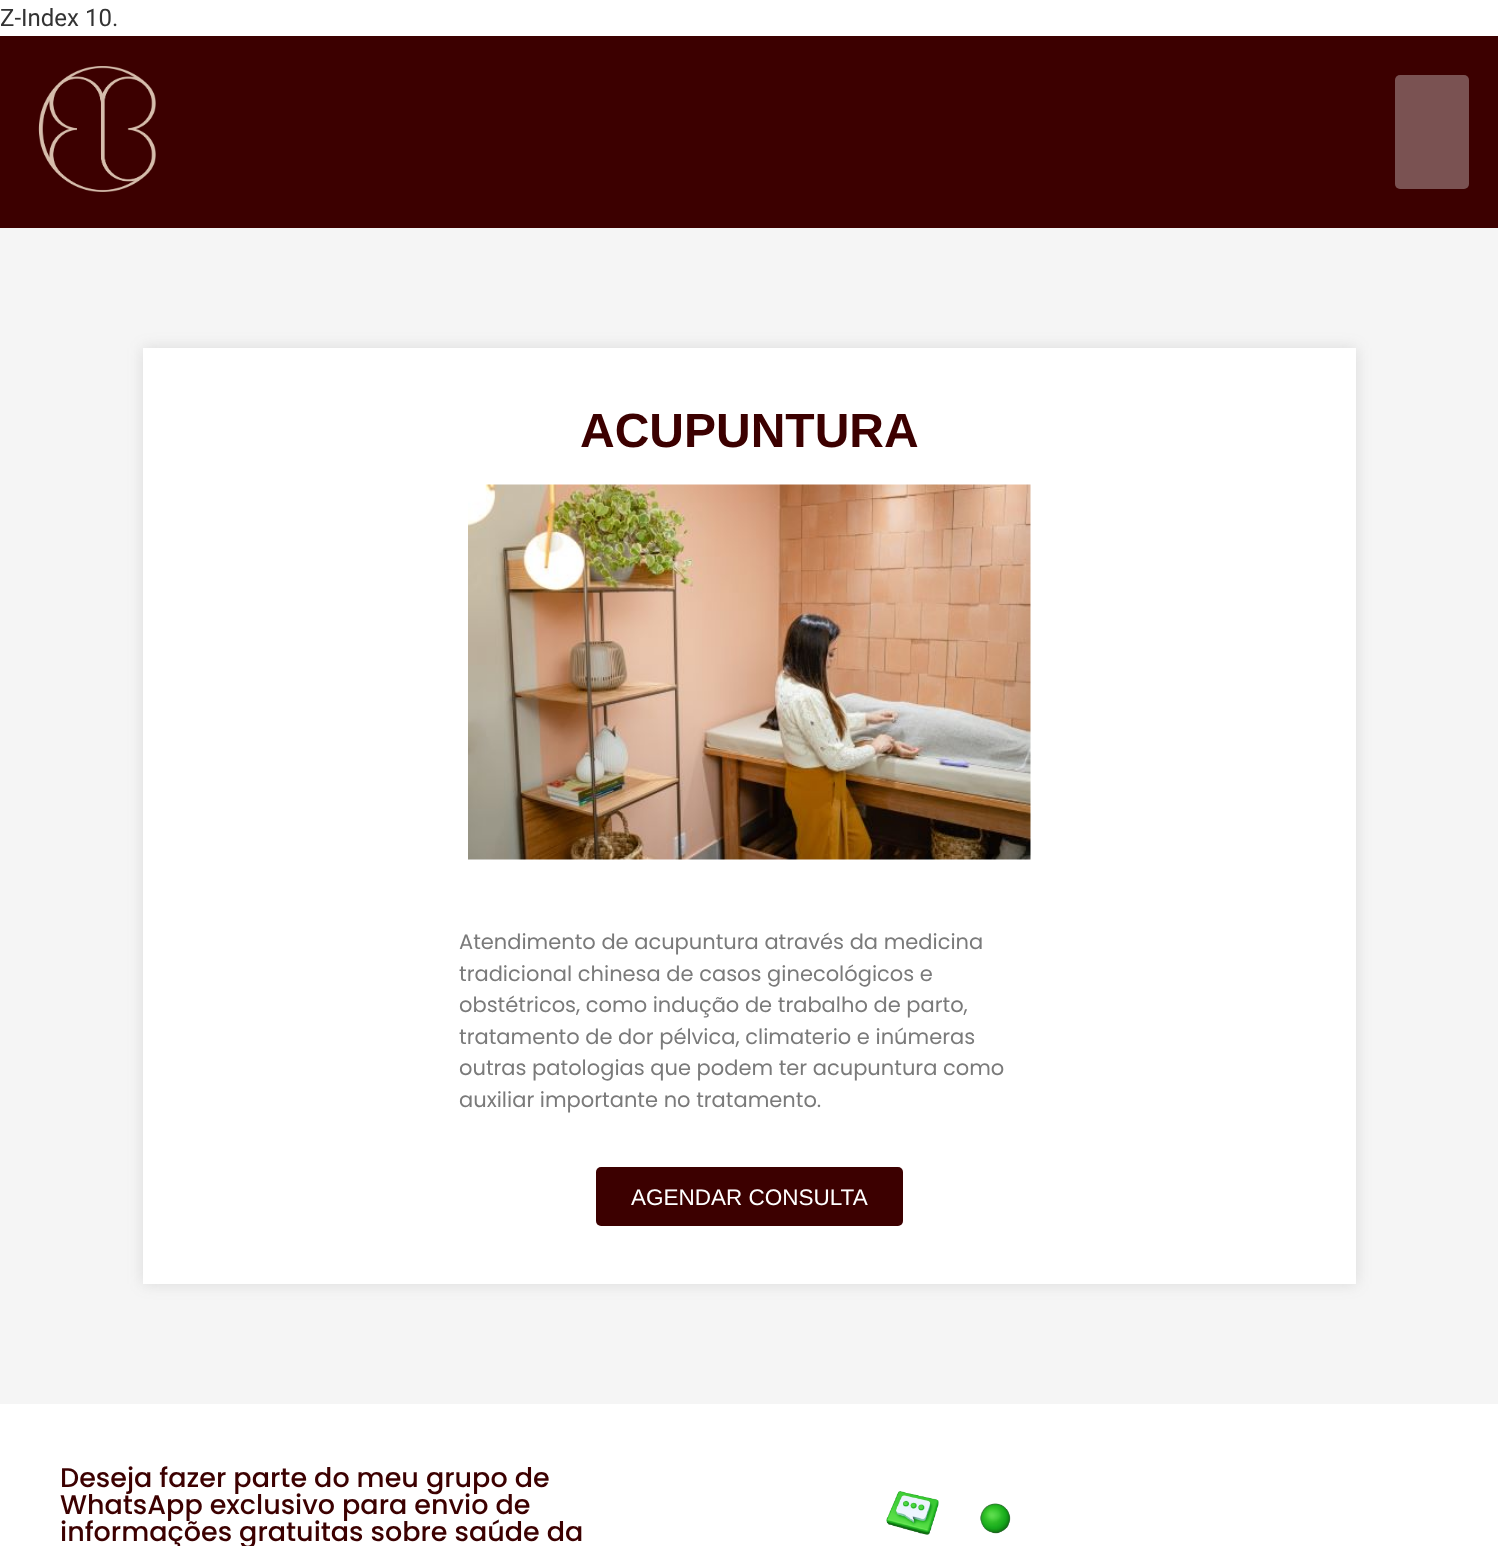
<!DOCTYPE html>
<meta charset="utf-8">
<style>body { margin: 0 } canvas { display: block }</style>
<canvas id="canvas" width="1498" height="1546"></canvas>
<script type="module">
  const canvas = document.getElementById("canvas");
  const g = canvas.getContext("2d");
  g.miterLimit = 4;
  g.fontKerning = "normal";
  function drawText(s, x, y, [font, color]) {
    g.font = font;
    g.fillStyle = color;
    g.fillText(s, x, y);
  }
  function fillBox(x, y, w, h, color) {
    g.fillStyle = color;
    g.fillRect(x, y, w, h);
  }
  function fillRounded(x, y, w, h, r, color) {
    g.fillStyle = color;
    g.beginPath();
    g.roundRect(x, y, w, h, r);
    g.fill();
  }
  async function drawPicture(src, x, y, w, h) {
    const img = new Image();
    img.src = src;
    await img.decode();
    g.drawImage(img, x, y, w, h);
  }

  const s1 = ["24px Roboto", "#333333"];
  const s2 = ["bold 48px Liberation Sans", "#3C0000"];
  const s3 = ["21px Poppins", "#7A7A7A"];
  const s4 = ["22.5px Liberation Sans", "#FFFFFF"];
  const s5 = ["500 27px Poppins", "#3C0000"];

  fillBox(0, 0, 1498, 1546, "#FFFFFF");
  drawText("Z-Index 10.", 0, 26, s1);
  fillBox(0, 36, 1498, 192, "#3C0000");
  await drawPicture("pic1.png", 38, 66, 118, 126);
  fillRounded(1395, 75, 74, 114, 5, "#7A5252");
  fillBox(0, 228, 1498, 1176, "#F5F5F5");
  g.fillStyle = "rgba(99, 99, 99, 0.18)";
  g.filter = "blur(7.5px)";
  g.beginPath();
  g.rect(143, 348, 1213, 936);
  g.fill();
  g.filter = "none";
  fillBox(143, 348, 1213, 936, "#FFFFFF");
  drawText("ACUPUNTURA", 580, 447, s2);
  await drawPicture("pic2.png", 468, 484, 563, 376);
  drawText("Atendimento de acupuntura através da medicina", 459, 949, s3);
  drawText("tradicional chinesa de casos ginecológicos e", 459, 981, s3);
  drawText("obstétricos, como indução de trabalho de parto,", 459, 1012, s3);
  drawText("tratamento de dor pélvica, climaterio e inúmeras", 459, 1044, s3);
  drawText("outras patologias que podem ter acupuntura como", 459, 1075, s3);
  drawText("auxiliar importante no tratamento.", 459, 1107, s3);
  fillRounded(596, 1167, 307, 59, 5, "#3C0000");
  drawText("AGENDAR CONSULTA", 631, 1205, s4);
  drawText("Deseja fazer parte do meu grupo de", 60, 1487, s5);
  drawText("WhatsApp exclusivo para envio de", 60, 1514, s5);
  drawText("informações gratuitas sobre saúde da", 60, 1541, s5);
  await drawPicture("pic3.png", 886, 1491, 125, 44);
</script>
